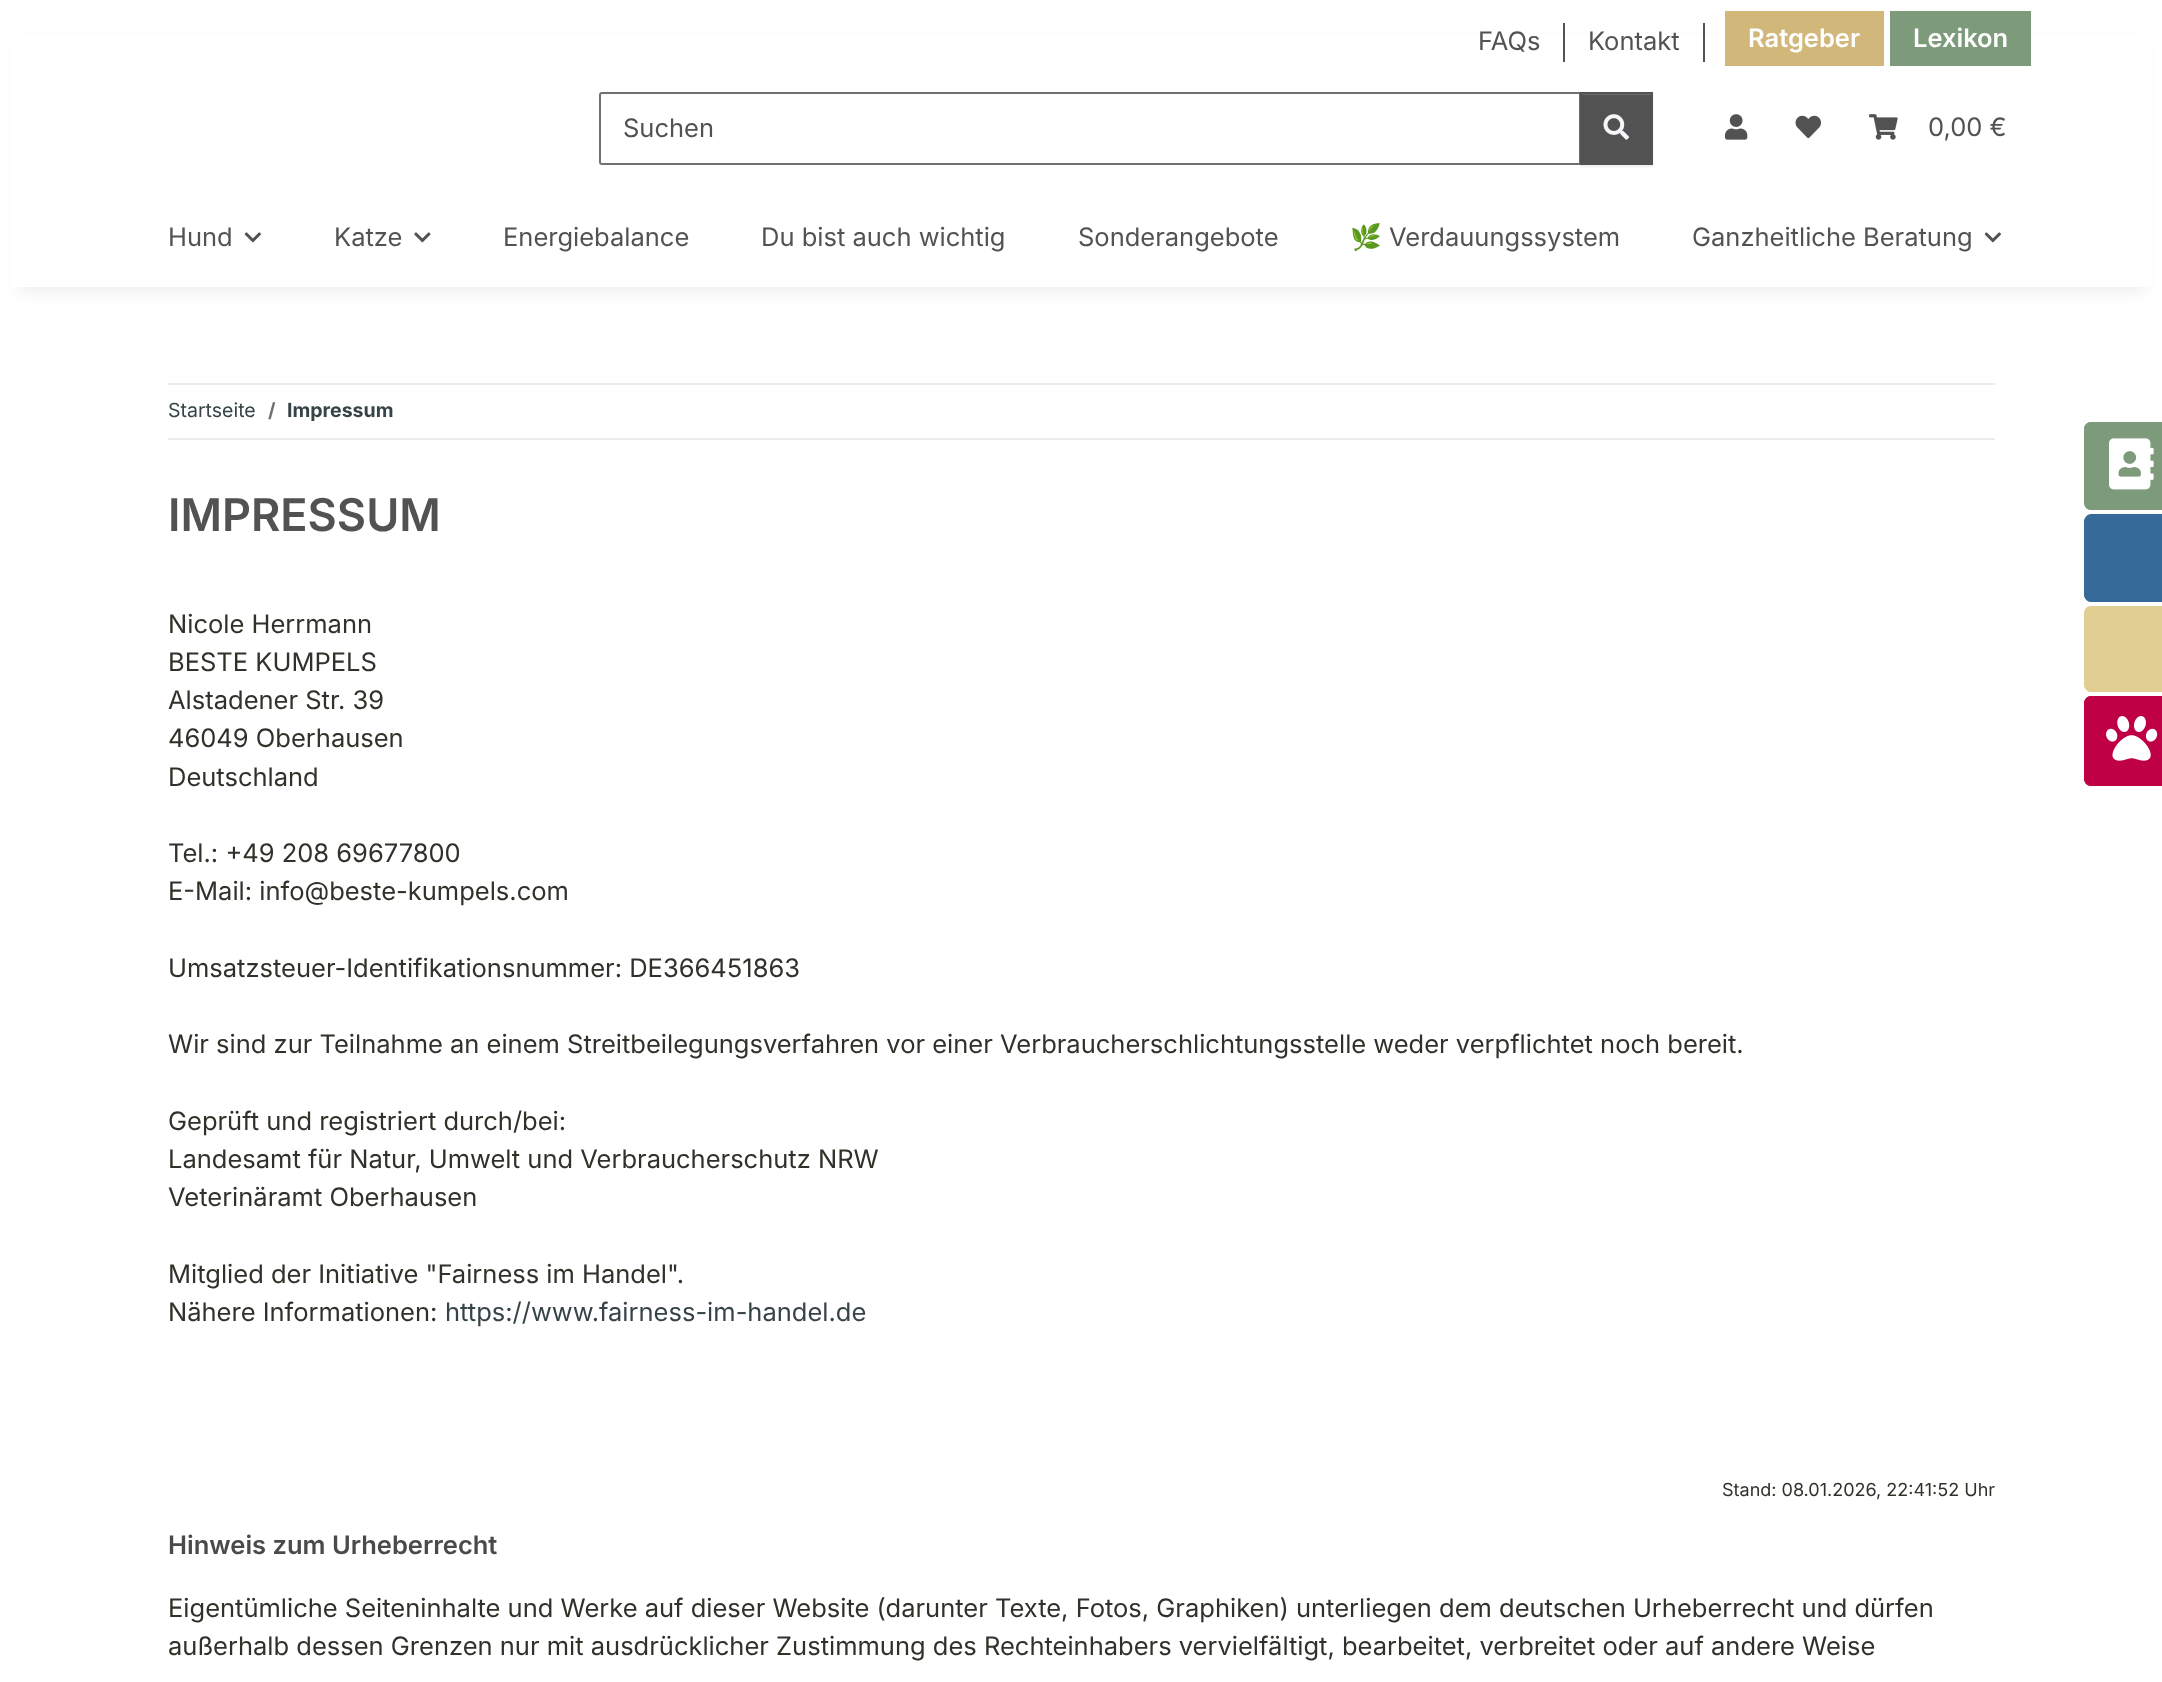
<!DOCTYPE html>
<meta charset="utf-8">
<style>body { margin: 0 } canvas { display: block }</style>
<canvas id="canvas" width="2162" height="1682"></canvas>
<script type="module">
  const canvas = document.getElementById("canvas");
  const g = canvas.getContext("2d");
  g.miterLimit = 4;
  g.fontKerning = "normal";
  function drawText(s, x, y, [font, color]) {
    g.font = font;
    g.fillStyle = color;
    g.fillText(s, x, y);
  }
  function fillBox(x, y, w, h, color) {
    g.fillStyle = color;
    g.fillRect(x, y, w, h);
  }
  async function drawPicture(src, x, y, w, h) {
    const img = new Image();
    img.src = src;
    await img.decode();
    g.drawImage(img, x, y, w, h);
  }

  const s1 = ["25.5px Inter", "#525252"];
  const s2 = ["600 25.5px Inter", "#FFFFFF"];
  const s3 = ["25.5px Noto Color Emoji", "#525252"];
  const s4 = ["19.5px Inter", "#374447"];
  const s5 = ["bold 19.5px Inter", "#707070"];
  const s6 = ["bold 19.5px Inter", "#374447"];
  const s7 = ["600 45px Inter", "#525252"];
  const s8 = ["25.5px Inter", "#313029"];
  const s9 = ["25.5px Inter", "#374447"];
  const s10 = ["18px Inter", "#313029"];
  const s11 = ["600 25.5px Inter", "#4A4A4A"];

  fillBox(0, 0, 2162, 1682, "#FFFFFF");
  g.fillStyle = "rgba(0, 0, 0, 0.06)";
  g.filter = "blur(7px)";
  g.beginPath();
  g.rect(18, 42, 2127, 251);
  g.fill();
  g.filter = "none";
  fillBox(11, 35, 2141, 252, "#FFFFFF");
  drawText("FAQs", 1478, 50, s1);
  fillBox(1563, 23, 2, 39, "#525252");
  drawText("Kontakt", 1588, 50, s1);
  fillBox(1703, 23, 2, 39, "#525252");
  fillBox(1725, 11, 159, 55, "#D1B77A");
  drawText("Ratgeber", 1748, 47, s2);
  fillBox(1890, 11, 141, 55, "#7D9B7B");
  drawText("Lexikon", 1913, 47, s2);
  g.beginPath();
  g.roundRect(600, 93, 980, 71, [2, 0, 0, 2]);
  g.strokeStyle = "#707070";
  g.lineWidth = 2;
  g.stroke();
  drawText("Suchen", 623, 137, s1);
  g.fillStyle = "rgba(0, 0, 0, 0.07)";
  g.filter = "blur(1px)";
  g.beginPath();
  g.rect(1580, 93, 73, 74);
  g.fill();
  g.filter = "none";
  fillBox(1582, 95, 69, 68, "#525252");
  fillBox(1581, 94, 71, 1, "#6C6C6C");
  g.strokeStyle = "#525252";
  g.strokeRect(1581, 93, 71, 71);
  await drawPicture("pic1.png", 1603, 114, 26, 26);
  await drawPicture("pic2.png", 1725, 114, 23, 26);
  await drawPicture("pic3.png", 1795, 115, 27, 24);
  await drawPicture("pic4.png", 1869, 114, 29, 26);
  drawText("0,00 €", 1928, 136, s1);
  drawText("Hund", 168, 246, s1);
  await drawPicture("pic5.png", 244, 232, 17, 11);
  drawText("Katze", 334, 246, s1);
  await drawPicture("pic6.png", 414, 232, 17, 11);
  drawText("Energiebalance", 503, 246, s1);
  drawText("Du bist auch wichtig", 761, 246, s1);
  drawText("Sonderangebote", 1078, 246, s1);
  drawText("🌿", 1350, 246, s3);
  drawText("Verdauungssystem", 1389, 246, s1);
  drawText("Ganzheitliche Beratung", 1692, 246, s1);
  await drawPicture("pic5.png", 1984, 232, 17, 11);
  fillBox(168, 383, 1827, 2, "#EBEBEB");
  fillBox(168, 438, 1827, 2, "#EBEBEB");
  drawText("Startseite", 168, 417, s4);
  drawText("/", 268, 417, s5);
  drawText("Impressum", 287, 417, s6);
  drawText("IMPRESSUM", 168, 531, s7);
  drawText("Nicole Herrmann", 168, 633, s8);
  drawText("BESTE KUMPELS", 168, 671, s8);
  drawText("Alstadener Str. 39", 168, 709, s8);
  drawText("46049 Oberhausen", 168, 747, s8);
  drawText("Deutschland", 168, 786, s8);
  drawText("Tel.: +49 208 69677800", 168, 862, s8);
  drawText("E-Mail: info@beste-kumpels.com", 168, 900, s8);
  drawText("Umsatzsteuer-Identifikationsnummer: DE366451863", 168, 977, s8);
  drawText("Wir sind zur Teilnahme an einem Streitbeilegungsverfahren vor einer Verbraucherschlichtungsstelle weder verpflichtet noch bereit.", 168, 1053, s8);
  drawText("Geprüft und registriert durch/bei:", 168, 1130, s8);
  drawText("Landesamt für Natur, Umwelt und Verbraucherschutz NRW", 168, 1168, s8);
  drawText("Veterinäramt Oberhausen", 168, 1206, s8);
  drawText("Mitglied der Initiative \"Fairness im Handel\".", 168, 1283, s8);
  drawText("Nähere Informationen:", 168, 1321, s8);
  drawText("https://www.fairness-im-handel.de", 445, 1321, s9);
  drawText("Stand: 08.01.2026, 22:41:52 Uhr", 1722, 1496, s10);
  drawText("Hinweis zum Urheberrecht", 168, 1554, s11);
  drawText("Eigentümliche Seiteninhalte und Werke auf dieser Website (darunter Texte, Fotos, Graphiken) unterliegen dem deutschen Urheberrecht und dürfen", 168, 1617, s8);
  drawText("außerhalb dessen Grenzen nur mit ausdrücklicher Zustimmung des Rechteinhabers vervielfältigt, bearbeitet, verbreitet oder auf andere Weise", 168, 1655, s8);
  g.fillStyle = "#7D9B7B";
  g.beginPath();
  g.moveTo(2092, 422);
  g.lineTo(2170, 422);
  g.lineTo(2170, 510);
  g.lineTo(2092, 510);
  g.bezierCurveTo(2087.5, 510, 2084, 506.5, 2084, 502);
  g.lineTo(2084, 430);
  g.bezierCurveTo(2084, 425.5, 2087.5, 422, 2092, 422);
  g.closePath();
  g.fill();
  g.beginPath();
  g.moveTo(2091, 422);
  g.lineTo(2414, 422);
  g.lineTo(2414, 510);
  g.lineTo(2091, 510);
  g.bezierCurveTo(2087, 510, 2084, 507, 2084, 502);
  g.lineTo(2084, 429);
  g.bezierCurveTo(2084, 425, 2087, 422, 2091, 422);
  g.closePath();
  g.moveTo(2091, 423);
  g.lineTo(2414, 423);
  g.lineTo(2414, 508);
  g.lineTo(2091, 508);
  g.bezierCurveTo(2088, 508, 2085, 506, 2085, 502);
  g.lineTo(2085, 429);
  g.bezierCurveTo(2085, 426, 2088, 423, 2091, 423);
  g.closePath();
  g.fill("evenodd");
  await drawPicture("pic7.png", 2109, 438, 45, 52);
  g.fillStyle = "#366B99";
  g.beginPath();
  g.moveTo(2092, 515);
  g.lineTo(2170, 515);
  g.lineTo(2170, 602);
  g.lineTo(2092, 602);
  g.bezierCurveTo(2087.5, 602, 2084, 598.5, 2084, 594);
  g.lineTo(2084, 523);
  g.bezierCurveTo(2084, 518.5, 2087.5, 515, 2092, 515);
  g.closePath();
  g.fill();
  g.beginPath();
  g.moveTo(2091, 514);
  g.lineTo(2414, 514);
  g.lineTo(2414, 602);
  g.lineTo(2091, 602);
  g.bezierCurveTo(2087, 602, 2084, 598, 2084, 594);
  g.lineTo(2084, 522);
  g.bezierCurveTo(2084, 518, 2087, 514, 2091, 514);
  g.closePath();
  g.moveTo(2091, 516);
  g.lineTo(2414, 516);
  g.lineTo(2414, 600);
  g.lineTo(2091, 600);
  g.bezierCurveTo(2088, 600, 2085, 597, 2085, 594);
  g.lineTo(2085, 522);
  g.bezierCurveTo(2085, 519, 2088, 516, 2091, 516);
  g.closePath();
  g.fill("evenodd");
  g.fillStyle = "#E1CE93";
  g.beginPath();
  g.moveTo(2092, 606);
  g.lineTo(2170, 606);
  g.lineTo(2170, 692);
  g.lineTo(2092, 692);
  g.bezierCurveTo(2087.5, 692, 2084, 688.5, 2084, 684);
  g.lineTo(2084, 614);
  g.bezierCurveTo(2084, 609.5, 2087.5, 606, 2092, 606);
  g.closePath();
  g.fill();
  g.beginPath();
  g.moveTo(2091, 606);
  g.lineTo(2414, 606);
  g.lineTo(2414, 692);
  g.lineTo(2091, 692);
  g.bezierCurveTo(2087, 692, 2084, 688, 2084, 684);
  g.lineTo(2084, 614);
  g.bezierCurveTo(2084, 609, 2087, 606, 2091, 606);
  g.closePath();
  g.moveTo(2091, 608);
  g.lineTo(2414, 608);
  g.lineTo(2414, 690);
  g.lineTo(2091, 690);
  g.bezierCurveTo(2088, 690, 2085, 687, 2085, 684);
  g.lineTo(2085, 614);
  g.bezierCurveTo(2085, 610, 2088, 608, 2091, 608);
  g.closePath();
  g.fill("evenodd");
  g.fillStyle = "#C00044";
  g.beginPath();
  g.moveTo(2092, 696);
  g.lineTo(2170, 696);
  g.lineTo(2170, 786);
  g.lineTo(2092, 786);
  g.bezierCurveTo(2087.5, 786, 2084, 782.5, 2084, 778);
  g.lineTo(2084, 704);
  g.bezierCurveTo(2084, 699.5, 2087.5, 696, 2092, 696);
  g.closePath();
  g.fill();
  g.beginPath();
  g.moveTo(2091, 696);
  g.lineTo(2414, 696);
  g.lineTo(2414, 786);
  g.lineTo(2091, 786);
  g.bezierCurveTo(2087, 786, 2084, 783, 2084, 778);
  g.lineTo(2084, 704);
  g.bezierCurveTo(2084, 699, 2087, 696, 2091, 696);
  g.closePath();
  g.moveTo(2091, 698);
  g.lineTo(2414, 698);
  g.lineTo(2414, 784);
  g.lineTo(2091, 784);
  g.bezierCurveTo(2088, 784, 2085, 782, 2085, 778);
  g.lineTo(2085, 704);
  g.bezierCurveTo(2085, 700, 2088, 698, 2091, 698);
  g.closePath();
  g.fill("evenodd");
  await drawPicture("pic8.png", 2106, 716, 52, 45);
</script>
